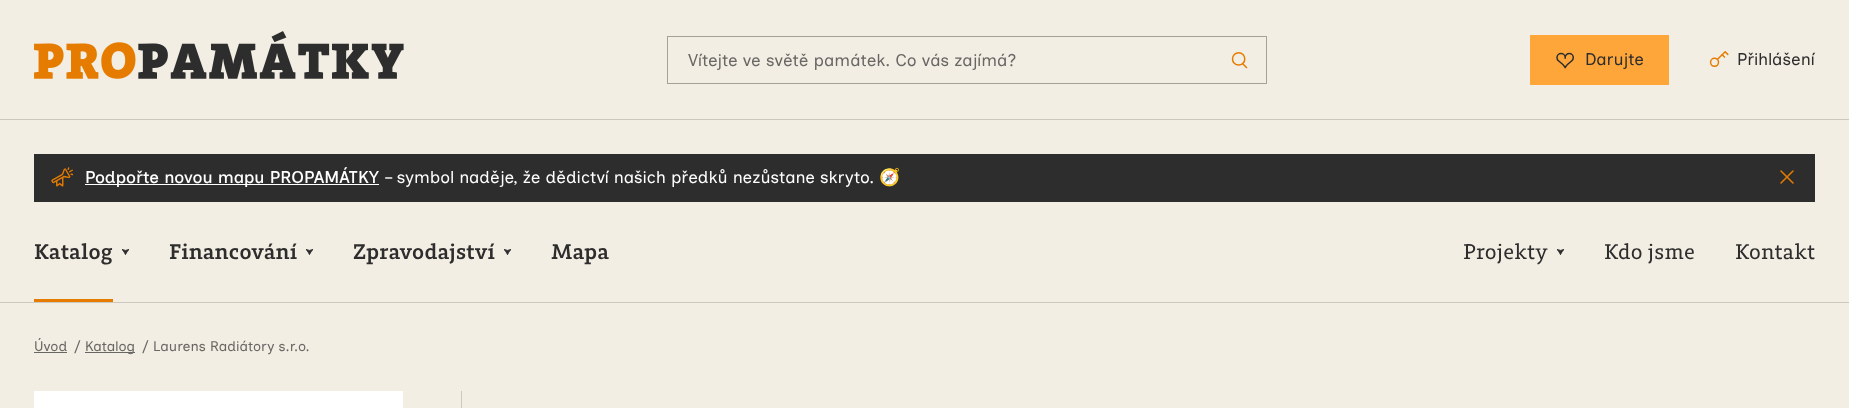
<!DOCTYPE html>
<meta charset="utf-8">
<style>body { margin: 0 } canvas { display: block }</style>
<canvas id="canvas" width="1849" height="408"></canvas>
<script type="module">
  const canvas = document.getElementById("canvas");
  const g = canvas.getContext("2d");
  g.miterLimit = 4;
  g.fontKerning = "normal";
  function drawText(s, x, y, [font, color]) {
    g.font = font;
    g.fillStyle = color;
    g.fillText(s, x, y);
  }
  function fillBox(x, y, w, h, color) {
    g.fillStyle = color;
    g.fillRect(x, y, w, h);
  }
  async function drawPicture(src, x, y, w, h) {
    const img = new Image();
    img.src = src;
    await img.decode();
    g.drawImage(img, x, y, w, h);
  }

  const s1 = ["17px Inclusive Sans", "#686764"];
  const s2 = ["17px Inclusive Sans", "#2D2D2D"];
  const s3 = ["500 17px Inclusive Sans", "#FFFFFF"];
  const s4 = ["17px Inclusive Sans", "#FFFFFF"];
  const s5 = ["17px Noto Color Emoji", "#FFFFFF"];
  const s6 = ["500 21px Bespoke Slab", "#2D2D2D"];
  const s7 = ["21px Bespoke Slab", "#2D2D2D"];
  const s8 = ["14px Inclusive Sans", "#686764"];

  fillBox(0, 0, 1849, 408, "#F3EEE4");
  await drawPicture("pic1.png", 34, 31, 370, 48);
  g.strokeStyle = "#A4A19B";
  g.strokeRect(667.5, 36.5, 599, 47);
  drawText("Vítejte ve světě památek. Co vás zajímá?", 688, 66, s1);
  await drawPicture("pic2.png", 1231, 52, 17, 17);
  fillBox(1530, 35, 139, 50, "#FFA63B");
  await drawPicture("pic3.png", 1556, 52, 18, 17);
  drawText("Darujte", 1585, 65, s2);
  await drawPicture("pic4.png", 1709, 51, 20, 16);
  drawText("Přihlášení", 1737, 65, s2);
  fillBox(0, 119, 1849, 1, "#CCC8C0");
  fillBox(34, 154, 1781, 48, "#2D2D2D");
  await drawPicture("pic5.png", 51, 167, 23, 20);
  fillBox(85, 184, 294, 1, "#FFFFFF");
  drawText("Podpořte novou mapu PROPAMÁTKY", 85, 183, s3);
  drawText("– symbol naděje, že dědictví našich předků nezůstane skryto.", 384, 183, s4);
  drawText("🧭", 879, 183, s5);
  await drawPicture("pic6.png", 1780, 170, 14, 14);
  drawText("Katalog", 34, 259, s6);
  fillBox(34, 299, 79, 3, "#E57C00");
  await drawPicture("pic7.png", 122, 249, 7, 6);
  drawText("Financování", 169, 259, s6);
  await drawPicture("pic7.png", 306, 249, 7, 6);
  drawText("Zpravodajství", 353, 259, s6);
  await drawPicture("pic8.png", 504, 249, 7, 6);
  drawText("Mapa", 551, 259, s6);
  drawText("Projekty", 1463, 259, s7);
  await drawPicture("pic7.png", 1557, 249, 7, 6);
  drawText("Kdo jsme", 1604, 259, s7);
  drawText("Kontakt", 1735, 259, s7);
  fillBox(0, 302, 1849, 1, "#CCC8C0");
  drawText("Úvod", 34, 351, s8);
  fillBox(34, 352, 33, 1, "#686764");
  drawText("/", 74, 351, s8);
  fillBox(85, 352, 50, 1, "#686764");
  drawText("Katalog", 85, 351, s8);
  drawText("/", 142, 351, s8);
  drawText("Laurens Radiátory s.r.o.", 153, 351, s8);
  fillBox(34, 391, 369, 17, "#FFFFFF");
  fillBox(461, 391, 1, 17, "#CCC8C0");
</script>
